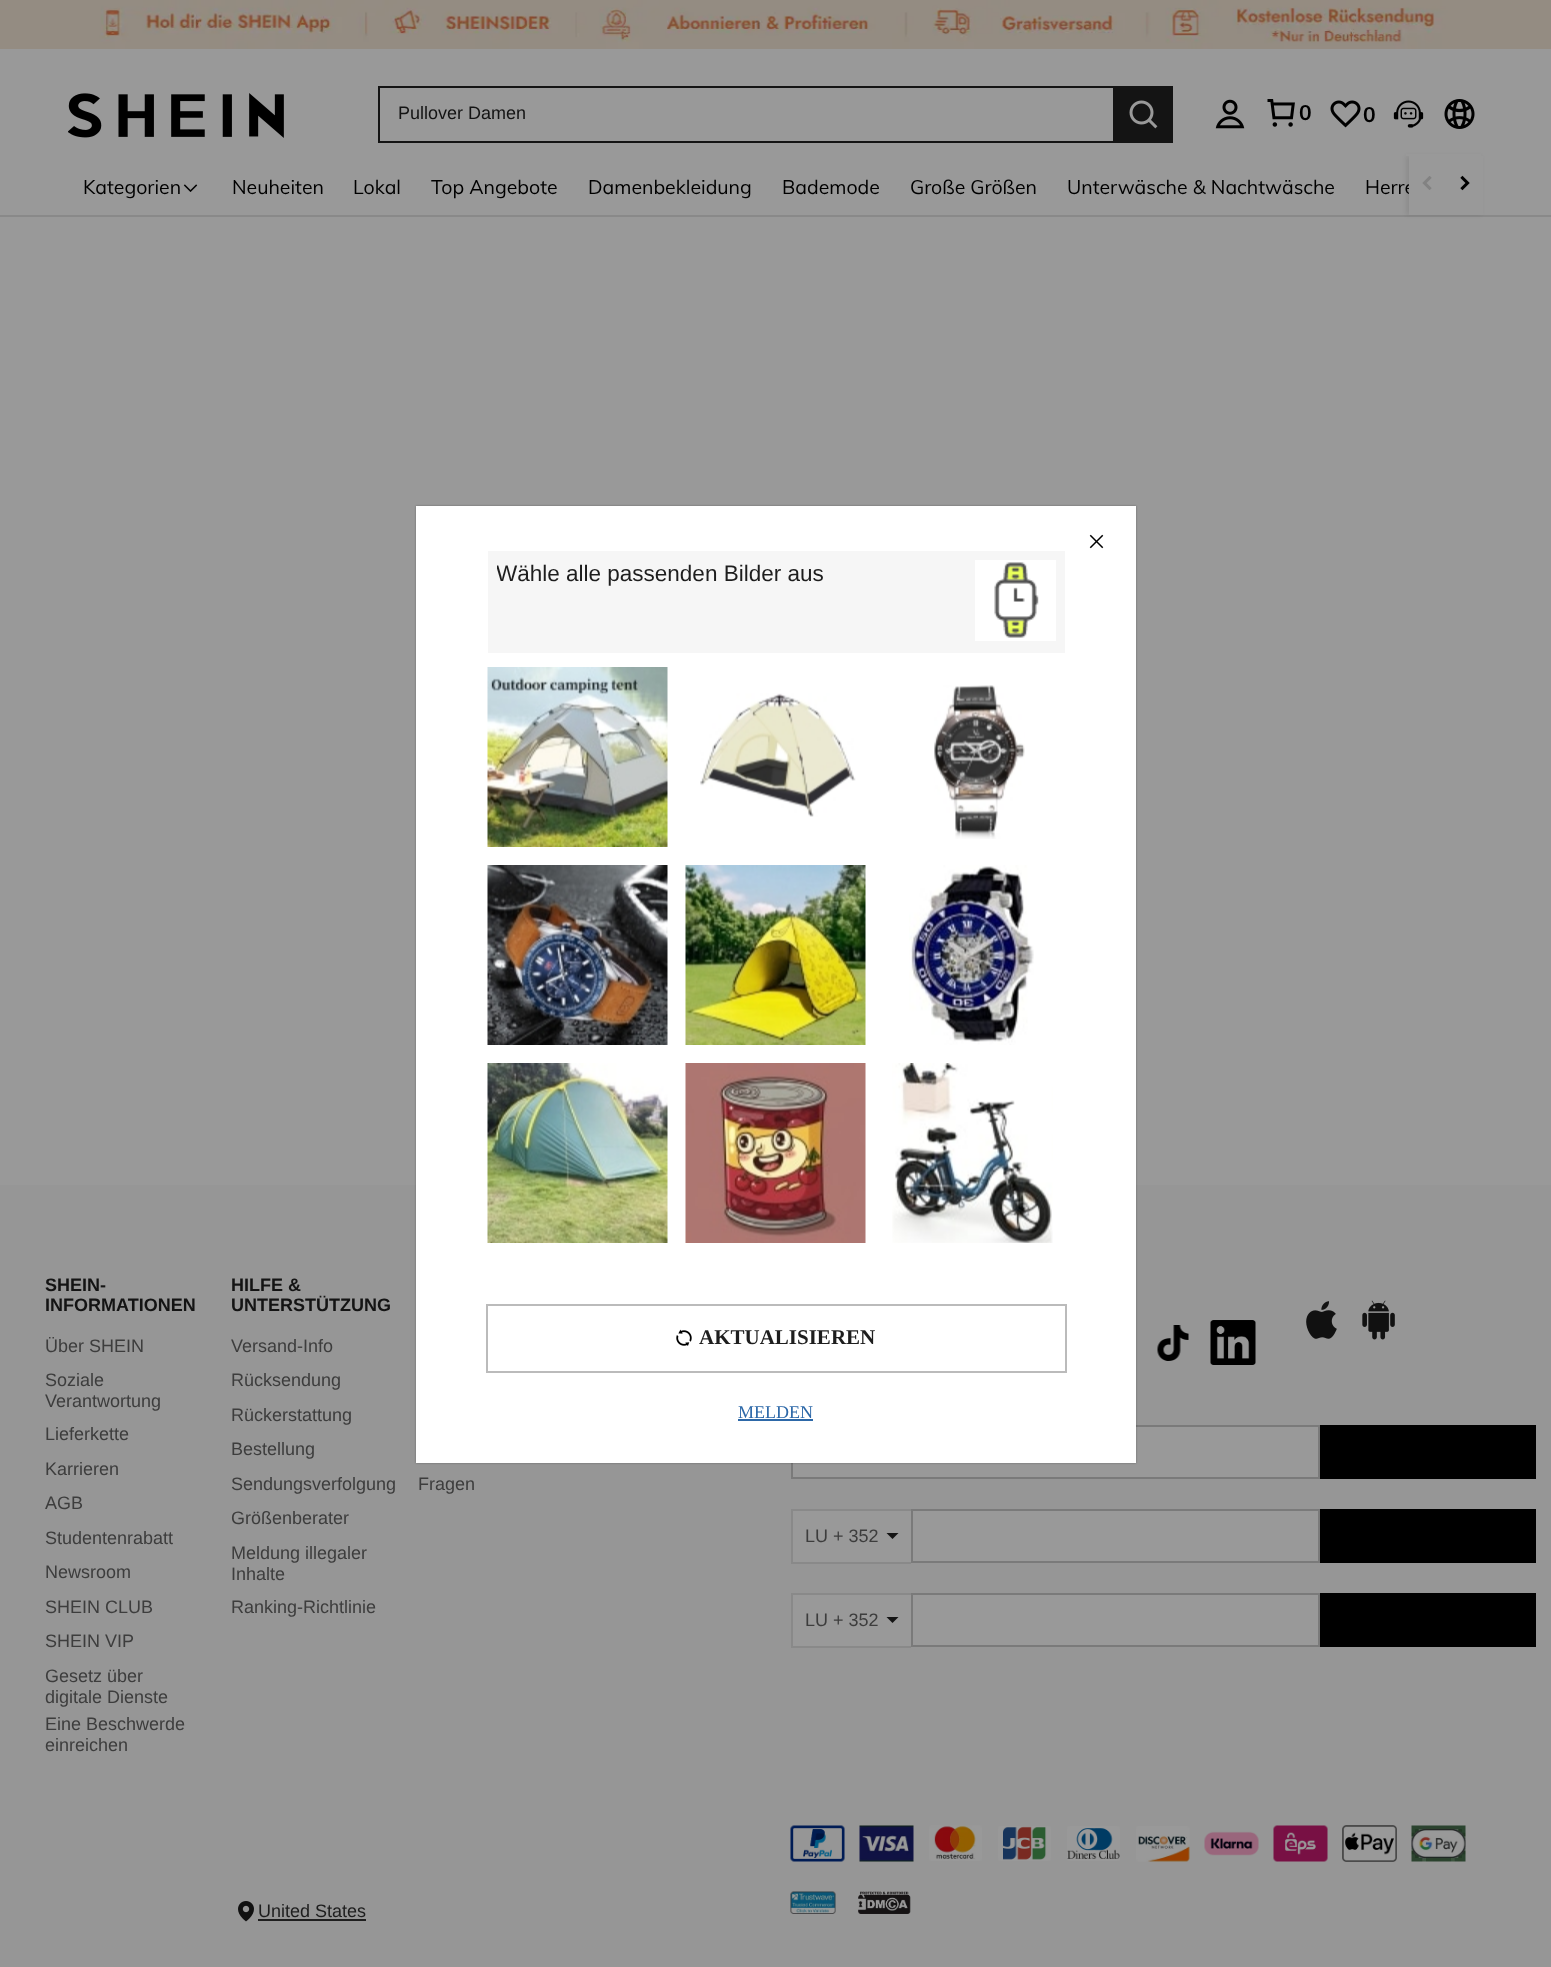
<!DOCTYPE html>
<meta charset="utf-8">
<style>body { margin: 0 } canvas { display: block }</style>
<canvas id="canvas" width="1551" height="1967"></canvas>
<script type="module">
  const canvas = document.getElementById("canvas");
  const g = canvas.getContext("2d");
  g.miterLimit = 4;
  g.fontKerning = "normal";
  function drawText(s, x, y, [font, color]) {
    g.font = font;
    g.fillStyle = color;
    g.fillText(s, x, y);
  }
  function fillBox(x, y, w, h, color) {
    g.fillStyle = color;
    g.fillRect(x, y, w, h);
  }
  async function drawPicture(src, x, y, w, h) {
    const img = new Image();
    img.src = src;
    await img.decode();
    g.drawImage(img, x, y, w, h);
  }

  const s1 = ["18px Liberation Sans", "#141414"];
  const s2 = ["bold 21px Muli", "#000000"];
  const s3 = ["19.5px Muli", "#000000"];
  const s4 = ["bold 18px Liberation Sans", "#141414"];
  const s5 = ["18px Liberation Sans", "#3D3D3D"];
  const s6 = ["18px Liberation Sans", "#1E1E1E"];
  const s7 = ["22.5px Liberation Sans", "#1E1E1E"];
  const s8 = ["bold 21px Liberation Serif", "#1E1E1E"];
  const s9 = ["18px Liberation Serif", "#2D68A8"];

  fillBox(0, 0, 1551, 1967, "#999999");
  await drawPicture("pic1.png", 0, 0, 1551, 49);
  fillBox(0, 215, 1551, 2, "#898989");
  g.fillStyle = "rgba(0, 0, 0, 0.08)";
  g.filter = "blur(2px)";
  g.beginPath();
  g.rect(1406, 156, 75, 59);
  g.fill();
  g.filter = "none";
  fillBox(1406, 154, 75, 2, "#999999");
  await drawPicture("pic2.png", 68, 93, 216, 45);
  fillBox(378, 86, 735, 2, "#141414");
  fillBox(378, 141, 735, 2, "#141414");
  fillBox(378, 86, 2, 57, "#141414");
  drawText("Pullover Damen", 398, 119, s1);
  fillBox(1113, 86, 60, 57, "#141414");
  await drawPicture("pic3.png", 1129, 100, 29, 29);
  await drawPicture("pic4.png", 1215, 99, 30, 30);
  await drawPicture("pic5.png", 1267, 99, 28, 28);
  drawText("0", 1299, 120, s2);
  await drawPicture("pic6.png", 1330, 100, 31, 28);
  drawText("0", 1363, 122, s2);
  await drawPicture("pic7.png", 1393, 100, 31, 28);
  await drawPicture("pic8.png", 1444, 99, 31, 30);
  drawText("Kategorien", 83, 194, s3);
  await drawPicture("pic9.png", 183, 184, 15, 8);
  drawText("Neuheiten", 232, 194, s3);
  drawText("Lokal", 353, 194, s3);
  drawText("Top Angebote", 431, 194, s3);
  drawText("Damenbekleidung", 588, 194, s3);
  drawText("Bademode", 782, 194, s3);
  drawText("Große Größen", 910, 194, s3);
  drawText("Unterwäsche & Nachtwäsche", 1067, 194, s3);
  drawText("Herre", 1365, 194, s3);
  fillBox(1409, 156, 74, 59, "#999999");
  await drawPicture("pic10.png", 1422, 176, 10, 14);
  await drawPicture("pic11.png", 1460, 175, 10, 16);
  fillBox(0, 1185, 1551, 782, "#969696");
  drawText("SHEIN-", 45, 1291, s4);
  drawText("INFORMATIONEN", 45, 1311, s4);
  drawText("Über SHEIN", 45, 1352, s5);
  drawText("Soziale", 45, 1386, s5);
  drawText("Verantwortung", 45, 1407, s5);
  drawText("Lieferkette", 45, 1440, s5);
  drawText("Karrieren", 45, 1475, s5);
  drawText("AGB", 45, 1509, s5);
  drawText("Studentenrabatt", 45, 1544, s5);
  drawText("Newsroom", 45, 1578, s5);
  drawText("SHEIN CLUB", 45, 1613, s5);
  drawText("SHEIN VIP", 45, 1647, s5);
  drawText("Gesetz über", 45, 1682, s5);
  drawText("digitale Dienste", 45, 1703, s5);
  drawText("Eine Beschwerde", 45, 1730, s5);
  drawText("einreichen", 45, 1751, s5);
  drawText("HILFE &", 231, 1291, s4);
  drawText("UNTERSTÜTZUNG", 231, 1311, s4);
  drawText("Versand-Info", 231, 1352, s5);
  drawText("Rücksendung", 231, 1386, s5);
  drawText("Rückerstattung", 231, 1421, s5);
  drawText("Bestellung", 231, 1455, s5);
  drawText("Sendungsverfolgung", 231, 1490, s5);
  drawText("Größenberater", 231, 1524, s5);
  drawText("Meldung illegaler", 231, 1559, s5);
  drawText("Inhalte", 231, 1580, s5);
  drawText("Ranking-Richtlinie", 231, 1613, s5);
  drawText("Fragen", 418, 1490, s5);
  await drawPicture("pic12.png", 1157, 1325, 32, 36);
  await drawPicture("pic13.png", 1210, 1320, 46, 45);
  await drawPicture("pic14.png", 1306, 1301, 31, 38);
  await drawPicture("pic15.png", 1362, 1300, 33, 40);
  g.fillStyle = "#999999";
  g.beginPath();
  g.rect(792, 1426, 527, 52);
  g.fill();
  g.strokeStyle = "#7A7A7A";
  g.lineWidth = 2;
  g.stroke();
  fillBox(1320, 1425, 216, 54, "#000000");
  fillBox(793, 1511, 118, 51, "#999999");
  fillBox(791, 1509, 120, 2, "#898989");
  fillBox(791, 1562, 120, 2, "#898989");
  fillBox(791, 1509, 2, 54, "#898989");
  drawText("LU + 352", 805, 1542, s5);
  g.fillStyle = "#141414";
  g.beginPath();
  g.moveTo(886.5, 1533);
  g.lineTo(898.5, 1533);
  g.lineTo(892.5, 1539);
  g.closePath();
  g.fill();
  g.fillStyle = "#999999";
  g.beginPath();
  g.rect(912, 1510, 407, 52);
  g.fill();
  g.stroke();
  fillBox(1320, 1509, 216, 54, "#000000");
  fillBox(793, 1595, 118, 51, "#999999");
  fillBox(791, 1593, 120, 2, "#898989");
  fillBox(791, 1646, 120, 2, "#898989");
  fillBox(791, 1593, 2, 54, "#898989");
  drawText("LU + 352", 805, 1626, s5);
  g.fillStyle = "#141414";
  g.beginPath();
  g.moveTo(886.5, 1617);
  g.lineTo(898.5, 1617);
  g.lineTo(892.5, 1623);
  g.closePath();
  g.fill();
  g.fillStyle = "#999999";
  g.beginPath();
  g.rect(912, 1594, 407, 52);
  g.fill();
  g.stroke();
  fillBox(1320, 1593, 216, 54, "#000000");
  await drawPicture("pic16.png", 790, 1825, 55, 37);
  await drawPicture("pic17.png", 859, 1825, 55, 37);
  await drawPicture("pic18.png", 929, 1825, 53, 36);
  await drawPicture("pic19.png", 998, 1826, 53, 35);
  await drawPicture("pic20.png", 1067, 1826, 53, 35);
  await drawPicture("pic21.png", 1136, 1826, 54, 36);
  await drawPicture("pic22.png", 1204, 1831, 55, 25);
  await drawPicture("pic23.png", 1273, 1825, 55, 37);
  await drawPicture("pic24.png", 1342, 1825, 55, 37);
  await drawPicture("pic25.png", 1411, 1825, 55, 37);
  await drawPicture("pic26.png", 238, 1901, 16, 21);
  drawText("United States", 258, 1917, s6);
  fillBox(258, 1919, 108, 2, "#1E1E1E");
  await drawPicture("pic27.png", 790, 1891, 46, 23);
  await drawPicture("pic28.png", 858, 1891, 53, 23);
  g.fillStyle = "rgba(0, 0, 0, 0.3)";
  g.filter = "blur(1px)";
  g.beginPath();
  g.rect(416, 506, 720, 957);
  g.fill();
  g.filter = "none";
  fillBox(416, 506, 720, 957, "#FFFFFF");
  await drawPicture("pic29.png", 1089, 534, 15, 15);
  fillBox(488, 551, 577, 102, "#F6F6F6");
  g.save();
  g.beginPath();
  g.rect(497, 560, 450, 84);
  g.clip();
  drawText("Wähle alle passenden Bilder aus", 496, 581, s7);
  g.restore();
  fillBox(975, 560, 81, 81, "#FFFFFF");
  await drawPicture("pic30.png", 994, 562, 45, 76);
  await drawPicture("pic31.png", 487, 667, 181, 180);
  await drawPicture("pic32.png", 700, 693, 156, 124);
  await drawPicture("pic33.png", 934, 685, 91, 154);
  await drawPicture("pic34.png", 487, 865, 181, 180);
  await drawPicture("pic35.png", 685, 865, 181, 180);
  await drawPicture("pic36.png", 909, 865, 125, 180);
  await drawPicture("pic37.png", 487, 1063, 181, 180);
  await drawPicture("pic38.png", 685, 1063, 181, 180);
  await drawPicture("pic39.png", 892, 1063, 161, 180);
  g.strokeStyle = "#BBBBBB";
  g.strokeRect(487, 1305, 579, 67);
  await drawPicture("pic40.png", 676, 1329, 16, 17);
  drawText("AKTUALISIEREN", 699, 1344, s8);
  drawText("MELDEN", 738, 1418, s9);
  fillBox(738, 1419, 75, 2, "#2D68A8");
</script>
